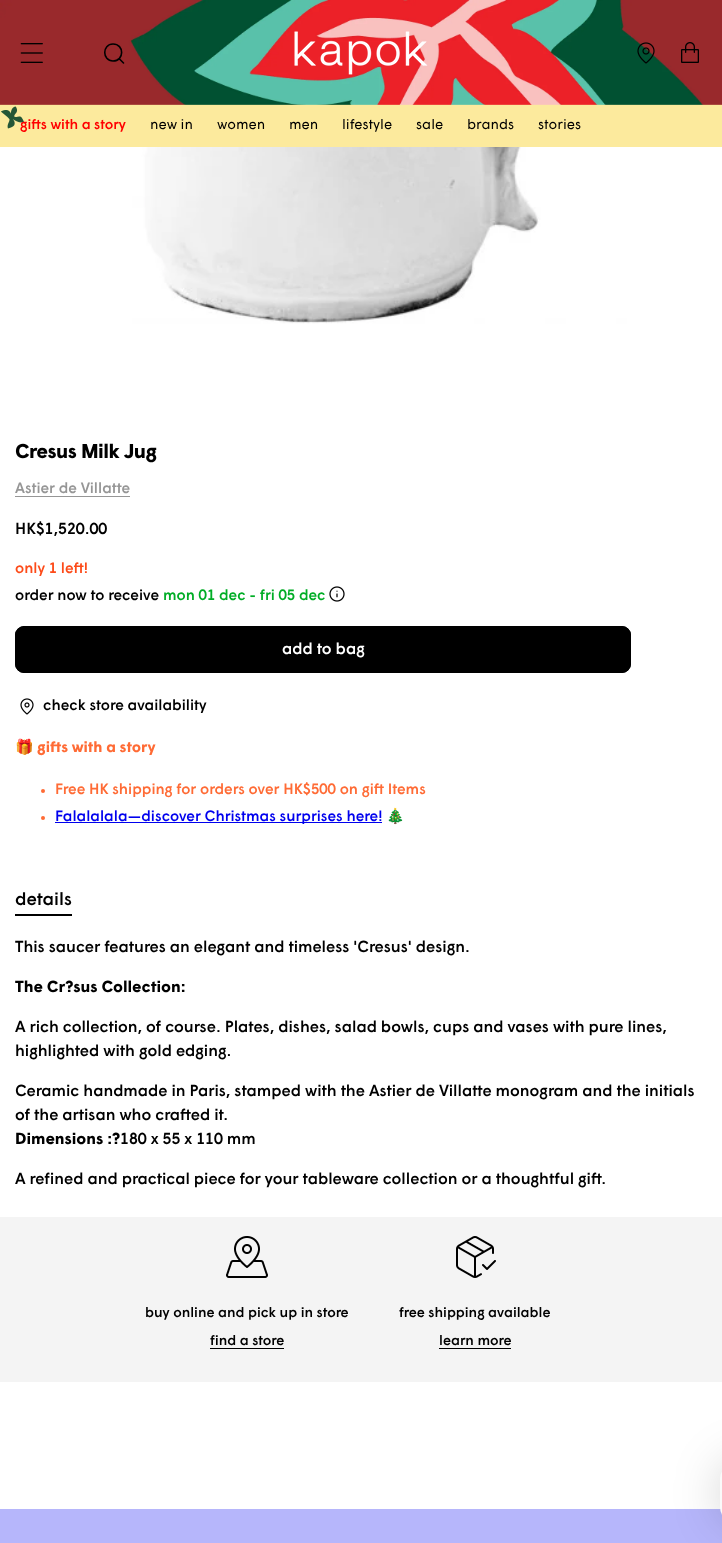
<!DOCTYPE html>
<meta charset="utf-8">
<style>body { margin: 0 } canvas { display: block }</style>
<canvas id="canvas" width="722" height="1543"></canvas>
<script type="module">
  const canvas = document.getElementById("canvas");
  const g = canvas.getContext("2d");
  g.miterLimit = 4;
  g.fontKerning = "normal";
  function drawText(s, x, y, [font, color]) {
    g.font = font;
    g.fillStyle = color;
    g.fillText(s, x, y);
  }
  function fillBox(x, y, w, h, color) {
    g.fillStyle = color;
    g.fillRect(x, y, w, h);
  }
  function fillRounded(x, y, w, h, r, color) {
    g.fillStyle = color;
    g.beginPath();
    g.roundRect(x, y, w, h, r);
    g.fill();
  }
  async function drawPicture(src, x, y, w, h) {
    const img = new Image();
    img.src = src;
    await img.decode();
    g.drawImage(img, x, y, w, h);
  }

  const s1 = ["500 14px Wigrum", "#FF0000"];
  const s2 = ["14px Wigrum", "#000000"];
  const s3 = ["bold 20px Wigrum", "#000000"];
  const s4 = ["500 15px Wigrum", "#969696"];
  const s5 = ["500 16px Wigrum", "#000000"];
  const s6 = ["500 15px Wigrum", "#FD4B19"];
  const s7 = ["500 15px Wigrum", "#000000"];
  const s8 = ["500 15px Wigrum", "#00AD26"];
  const s9 = ["500 16px Wigrum", "#FFFFFF"];
  const s10 = ["bold 15px Noto Color Emoji", "#FF6B35"];
  const s11 = ["bold 15px Wigrum", "#FF6B35"];
  const s12 = ["500 15px Wigrum", "#FF6B35"];
  const s13 = ["500 15px Wigrum", "#0000EE"];
  const s14 = ["15px Noto Color Emoji", "#FF6B35"];
  const s15 = ["500 18px Wigrum", "#000000"];
  const s16 = ["bold 16px Wigrum", "#000000"];
  const s17 = ["500 14px Wigrum", "#000000"];

  fillBox(0, 0, 722, 1543, "#FFFFFF");
  fillBox(0, 104, 722, 43, "#FCEA9D");
  await drawPicture("pic1.png", 0, 0, 722, 105);
  await drawPicture("pic2.png", 20, 43, 23, 20);
  g.beginPath();
  g.moveTo(113, 61);
  g.bezierCurveTo(124.5, 61, 124.5, 44, 113, 44);
  g.bezierCurveTo(102, 44, 102, 61, 113, 61);
  g.closePath();
  g.moveTo(123.5, 63);
  g.lineTo(119, 58.5);
  g.strokeStyle = "#000000";
  g.lineWidth = 1.6;
  g.lineCap = "round";
  g.lineJoin = "round";
  g.stroke();
  await drawPicture("pic3.png", 294, 31, 134, 44);
  await drawPicture("pic4.png", 637, 42, 18, 22);
  await drawPicture("pic5.png", 681, 42, 18, 21);
  await drawPicture("pic6.png", 1, 106, 24, 23);
  drawText("gifts with a story", 20, 129, s1);
  drawText("new in", 150, 129, s2);
  drawText("women", 217, 129, s2);
  drawText("men", 289, 129, s2);
  drawText("lifestyle", 342, 129, s2);
  drawText("sale", 416, 129, s2);
  drawText("brands", 467, 129, s2);
  drawText("stories", 538, 129, s2);
  await drawPicture("pic7.png", 132, 147, 497, 177);
  g.letterSpacing = "-0.5px";
  drawText("Cresus Milk Jug", 15, 458, s3);
  g.letterSpacing = "0px";
  drawText("Astier de Villatte", 15, 493, s4);
  fillBox(15, 496, 115, 1, "#969696");
  drawText("HK$1,520.00", 15, 534, s5);
  drawText("only 1 left!", 15, 573, s6);
  drawText("order now to receive", 15, 600, s7);
  drawText("mon 01 dec - fri 05 dec", 163, 600, s8);
  await drawPicture("pic8.png", 329, 586, 16, 16);
  fillRounded(15, 626, 616, 47, 9, "#000000");
  g.beginPath();
  g.roundRect(15.5, 626.5, 615, 46, 8.5);
  g.lineWidth = 1;
  g.lineJoin = "miter";
  g.stroke();
  drawText("add to bag", 282, 654, s9);
  await drawPicture("pic9.png", 20, 698, 14, 17);
  drawText("check store availability", 43, 710, s7);
  drawText("🎁", 15, 752, s10);
  drawText("gifts with a story", 37, 752, s11);
  g.beginPath();
  g.arc(43, 791, 2, 0, Math.PI * 2);
  g.fill();
  drawText("Free HK shipping for orders over HK$500 on gift Items", 55, 794, s12);
  g.beginPath();
  g.arc(43, 818, 2, 0, Math.PI * 2);
  g.fill();
  fillBox(55, 822, 327, 1, "#0000EE");
  drawText("Falalalala—discover Christmas surprises here!", 55, 821, s13);
  drawText("🎄", 386, 821, s14);
  fillBox(15, 914, 57, 2, "#000000");
  drawText("details", 15, 905, s15);
  drawText("This saucer features an elegant and timeless 'Cresus' design.", 15, 952, s5);
  drawText("The Cr?sus Collection:", 15, 992, s16);
  drawText("A rich collection, of course. Plates, dishes, salad bowls, cups and vases with pure lines,", 15, 1032, s5);
  drawText("highlighted with gold edging.", 15, 1056, s5);
  drawText("Ceramic handmade in Paris, stamped with the Astier de Villatte monogram and the initials", 15, 1096, s5);
  drawText("of the artisan who crafted it.", 15, 1120, s5);
  drawText("Dimensions :?", 15, 1144, s16);
  drawText("180 x 55 x 110 mm", 120, 1144, s5);
  drawText("A refined and practical piece for your tableware collection or a thoughtful gift.", 15, 1184, s5);
  fillBox(0, 1217, 722, 165, "#F4F4F4");
  await drawPicture("pic10.png", 226, 1236, 42, 42);
  drawText("buy online and pick up in store", 145, 1317, s17);
  drawText("find a store", 210, 1345, s17);
  fillBox(210, 1348, 74, 1, "#000000");
  await drawPicture("pic11.png", 456, 1236, 40, 42);
  drawText("free shipping available", 399, 1317, s17);
  drawText("learn more", 439, 1345, s17);
  fillBox(439, 1348, 72, 1, "#000000");
  fillBox(0, 1509, 722, 34, "#B6B6FB");
  g.fillStyle = "rgba(0, 0, 0, 0.2)";
  g.filter = "blur(25px)";
  g.beginPath();
  g.roundRect(720, 1463, 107, 60, 30);
  g.fill();
  g.filter = "none";
  fillRounded(720, 1463, 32, 60, 30, "#FAFAFA");
</script>
